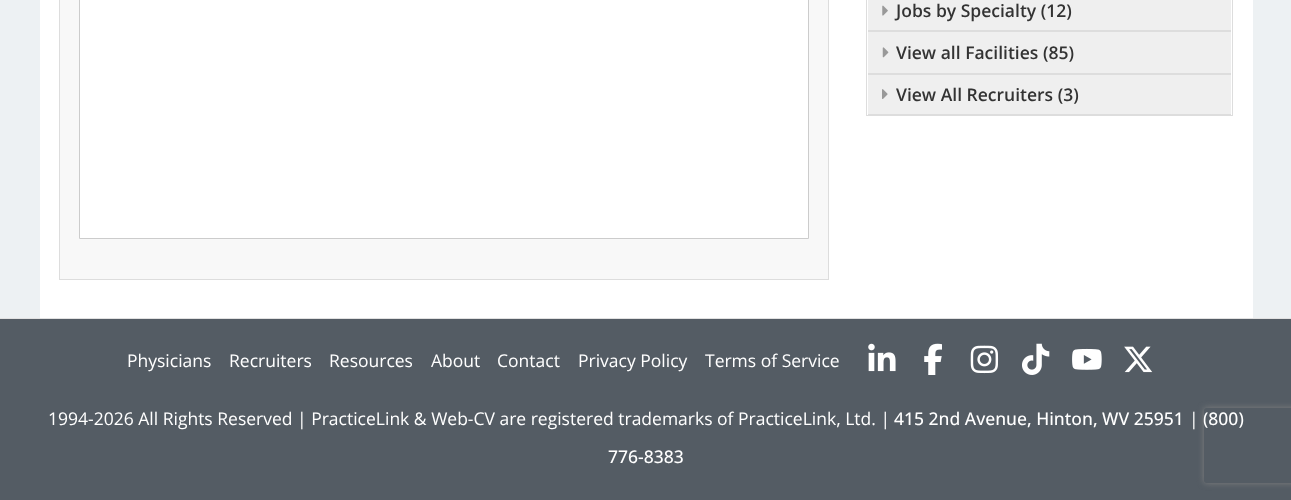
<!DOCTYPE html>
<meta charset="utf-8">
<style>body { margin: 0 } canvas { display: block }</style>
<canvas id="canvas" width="1291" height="500"></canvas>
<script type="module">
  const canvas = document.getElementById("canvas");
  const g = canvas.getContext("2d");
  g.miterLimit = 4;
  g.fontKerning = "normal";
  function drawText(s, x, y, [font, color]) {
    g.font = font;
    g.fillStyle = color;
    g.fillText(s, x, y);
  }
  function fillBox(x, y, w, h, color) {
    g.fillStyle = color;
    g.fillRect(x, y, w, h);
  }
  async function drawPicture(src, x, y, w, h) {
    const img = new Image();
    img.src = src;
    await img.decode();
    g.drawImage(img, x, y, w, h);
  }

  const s1 = ["600 17.5px Open Sans", "#333333"];
  const s2 = ["17.5px Open Sans", "#FFFFFF"];
  const s3 = ["500 17.5px Open Sans", "#FFFFFF"];

  fillBox(0, 0, 1291, 500, "#545C64");
  fillBox(0, 0, 1291, 318, "#EDF1F3");
  fillBox(40, 0, 1213, 318, "#FFFFFF");
  g.strokeStyle = "#DDDDDD";
  g.strokeRect(59.5, -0.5, 769, 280);
  fillBox(60, 0, 768, 279, "#F8F8F8");
  g.fillStyle = "#FFFFFF";
  g.beginPath();
  g.rect(79.5, -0.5, 729, 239);
  g.fill();
  g.strokeStyle = "#CCCCCC";
  g.stroke();
  g.strokeStyle = "#DDDDDD";
  g.strokeRect(866.5, -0.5, 366, 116);
  fillBox(868, 0, 363, 30, "#EFEFEF");
  fillBox(868, 30, 363, 2, "#DDDDDD");
  await drawPicture("pic1.png", 882, 5, 6, 11);
  drawText("Jobs by Specialty (12)", 896, 17, s1);
  fillBox(868, 32, 363, 41, "#EFEFEF");
  fillBox(868, 73, 363, 2, "#DDDDDD");
  await drawPicture("pic2.png", 882, 47, 7, 11);
  drawText("View all Facilities (85)", 896, 59, s1);
  fillBox(868, 75, 363, 39, "#EFEFEF");
  fillBox(868, 114, 363, 1, "#DDDDDD");
  await drawPicture("pic3.png", 882, 89, 6, 10);
  drawText("View All Recruiters (3)", 896, 101, s1);
  fillBox(0, 318, 1291, 1, "#E1E1E1");
  drawText("Physicians", 127, 367, s2);
  drawText("Recruiters", 229, 367, s2);
  drawText("Resources", 329, 367, s2);
  drawText("About", 431, 367, s2);
  drawText("Contact", 497, 367, s2);
  drawText("Privacy Policy", 578, 367, s2);
  drawText("Terms of Service", 705, 367, s2);
  await drawPicture("pic4.png", 868, 343, 28, 29);
  await drawPicture("pic5.png", 924, 343, 18, 32);
  await drawPicture("pic6.png", 970, 345, 29, 29);
  await drawPicture("pic7.png", 1022, 343, 28, 32);
  await drawPicture("pic8.png", 1072, 348, 30, 22);
  await drawPicture("pic9.png", 1124, 346, 29, 27);
  drawText("1994-2026 All Rights Reserved | PracticeLink & Web-CV are registered trademarks of PracticeLink, Ltd. |", 48, 425, s2);
  drawText("415 2nd Avenue, Hinton, WV 25951", 894, 425, s3);
  drawText("|", 1189, 425, s2);
  drawText("(800)", 1203, 425, s3);
  drawText("776-8383", 608, 463, s3);
  g.save();
  g.beginPath();
  g.moveTo(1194, 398);
  g.lineTo(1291, 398);
  g.lineTo(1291, 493);
  g.lineTo(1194, 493);
  g.closePath();
  g.moveTo(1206.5, 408);
  g.lineTo(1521.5, 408);
  g.bezierCurveTo(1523, 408, 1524, 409, 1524, 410.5);
  g.lineTo(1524, 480.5);
  g.bezierCurveTo(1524, 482, 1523, 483, 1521.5, 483);
  g.lineTo(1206.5, 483);
  g.bezierCurveTo(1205, 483, 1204, 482, 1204, 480.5);
  g.lineTo(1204, 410.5);
  g.bezierCurveTo(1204, 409, 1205, 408, 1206.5, 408);
  g.closePath();
  g.clip("evenodd");
  g.fillStyle = "#808080";
  g.filter = "blur(3px)";
  g.beginPath();
  g.roundRect(1204, 408, 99, 75, 2.5);
  g.fill();
  g.filter = "none";
  g.restore();
</script>
